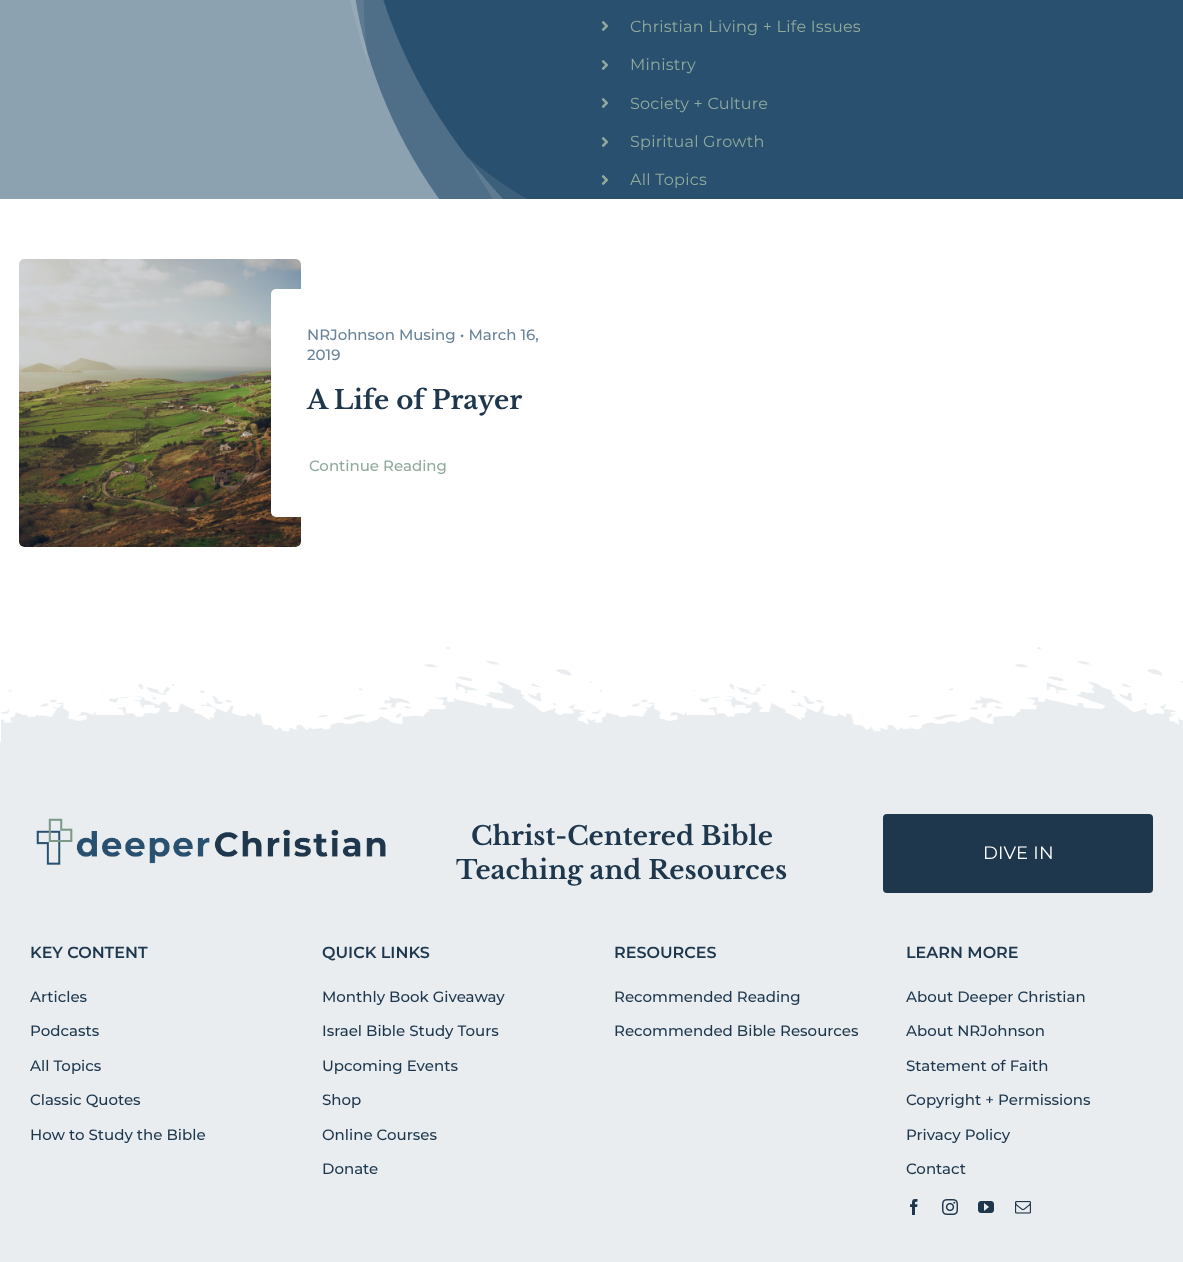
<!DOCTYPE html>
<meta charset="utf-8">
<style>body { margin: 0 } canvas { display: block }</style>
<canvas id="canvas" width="1183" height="1262"></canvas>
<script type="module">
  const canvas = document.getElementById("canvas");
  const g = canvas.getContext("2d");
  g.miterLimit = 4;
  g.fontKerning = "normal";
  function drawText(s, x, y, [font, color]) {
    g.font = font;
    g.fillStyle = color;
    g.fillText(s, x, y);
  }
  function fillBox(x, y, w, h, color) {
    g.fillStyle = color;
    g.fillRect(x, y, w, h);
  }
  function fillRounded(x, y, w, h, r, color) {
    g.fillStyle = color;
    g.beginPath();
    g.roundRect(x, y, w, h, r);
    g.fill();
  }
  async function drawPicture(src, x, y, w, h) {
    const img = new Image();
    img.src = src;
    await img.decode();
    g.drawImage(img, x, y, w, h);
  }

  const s1 = ["16px Montserrat", "#91AA9D"];
  const s2 = ["500 15px Montserrat", "#698499"];
  const s3 = ["bold 26px Libre Baskerville", "#1E374D"];
  const s4 = ["500 15px Montserrat", "#91AA9D"];
  const s5 = ["18px Montserrat", "#FFFFFF"];
  const s6 = ["600 16px Montserrat", "#1E374D"];
  const s7 = ["500 15px Montserrat", "#1E374D"];

  fillBox(0, 0, 1183, 1262, "#FFFFFF");
  fillBox(0, 0, 1183, 199, "#29506E");
  await drawPicture("pic1.png", 0, 0, 526, 199);
  await drawPicture("pic2.png", 601, 21, 8, 10);
  g.letterSpacing = "0.25px";
  drawText("Christian Living + Life Issues", 630, 32, s1);
  await drawPicture("pic2.png", 601, 60, 8, 10);
  drawText("Ministry", 630, 70, s1);
  await drawPicture("pic2.png", 601, 98, 8, 10);
  drawText("Society + Culture", 630, 109, s1);
  await drawPicture("pic2.png", 601, 137, 8, 10);
  drawText("Spiritual Growth", 630, 147, s1);
  await drawPicture("pic2.png", 601, 175, 8, 10);
  drawText("All Topics", 630, 185, s1);
  await drawPicture("pic3.png", 19, 259, 282, 288);
  fillRounded(271, 289, 281, 228, 5, "#FFFFFF");
  g.letterSpacing = "0px";
  drawText("NRJohnson Musing • March 16,", 307, 340, s2);
  drawText("2019", 307, 360, s2);
  drawText("A Life of Prayer", 307, 409, s3);
  drawText("Continue Reading", 309, 471, s4);
  await drawPicture("pic4.png", 1, 647, 1182, 95);
  fillBox(0, 742, 1183, 520, "#E9EDF0");
  await drawPicture("pic5.png", 36, 818, 350, 47);
  drawText("Christ-Centered Bible", 471, 845, s3);
  drawText("Teaching and Resources", 456, 879, s3);
  fillRounded(883, 814, 270, 79, 4, "#1E374D");
  g.letterSpacing = "0.25px";
  drawText("DIVE IN", 983, 859, s5);
  g.letterSpacing = "0px";
  drawText("KEY CONTENT", 30, 958, s6);
  drawText("Articles", 30, 1002, s7);
  drawText("Podcasts", 30, 1036, s7);
  drawText("All Topics", 30, 1071, s7);
  drawText("Classic Quotes", 30, 1105, s7);
  drawText("How to Study the Bible", 30, 1140, s7);
  drawText("QUICK LINKS", 322, 958, s6);
  drawText("Monthly Book Giveaway", 322, 1002, s7);
  drawText("Israel Bible Study Tours", 322, 1036, s7);
  drawText("Upcoming Events", 322, 1071, s7);
  drawText("Shop", 322, 1105, s7);
  drawText("Online Courses", 322, 1140, s7);
  drawText("Donate", 322, 1174, s7);
  drawText("RESOURCES", 614, 958, s6);
  drawText("Recommended Reading", 614, 1002, s7);
  drawText("Recommended Bible Resources", 614, 1036, s7);
  drawText("LEARN MORE", 906, 958, s6);
  drawText("About Deeper Christian", 906, 1002, s7);
  drawText("About NRJohnson", 906, 1036, s7);
  drawText("Statement of Faith", 906, 1071, s7);
  drawText("Copyright + Permissions", 906, 1105, s7);
  drawText("Privacy Policy", 906, 1140, s7);
  drawText("Contact", 906, 1174, s7);
  await drawPicture("pic6.png", 910, 1199, 8, 16);
  await drawPicture("pic7.png", 942, 1199, 16, 16);
  await drawPicture("pic8.png", 978, 1201, 16, 12);
  await drawPicture("pic9.png", 1015, 1201, 16, 13);
</script>
